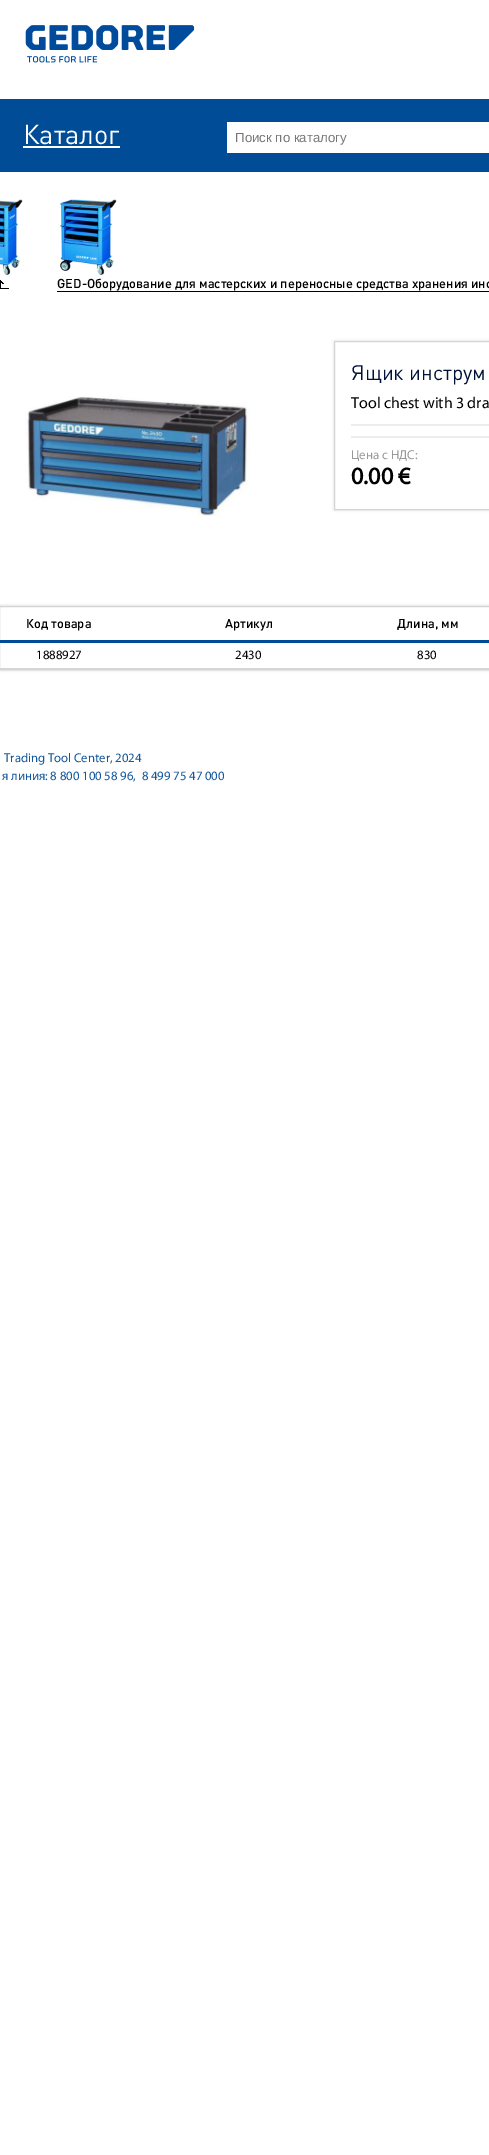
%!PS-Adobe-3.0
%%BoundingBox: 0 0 489 2155
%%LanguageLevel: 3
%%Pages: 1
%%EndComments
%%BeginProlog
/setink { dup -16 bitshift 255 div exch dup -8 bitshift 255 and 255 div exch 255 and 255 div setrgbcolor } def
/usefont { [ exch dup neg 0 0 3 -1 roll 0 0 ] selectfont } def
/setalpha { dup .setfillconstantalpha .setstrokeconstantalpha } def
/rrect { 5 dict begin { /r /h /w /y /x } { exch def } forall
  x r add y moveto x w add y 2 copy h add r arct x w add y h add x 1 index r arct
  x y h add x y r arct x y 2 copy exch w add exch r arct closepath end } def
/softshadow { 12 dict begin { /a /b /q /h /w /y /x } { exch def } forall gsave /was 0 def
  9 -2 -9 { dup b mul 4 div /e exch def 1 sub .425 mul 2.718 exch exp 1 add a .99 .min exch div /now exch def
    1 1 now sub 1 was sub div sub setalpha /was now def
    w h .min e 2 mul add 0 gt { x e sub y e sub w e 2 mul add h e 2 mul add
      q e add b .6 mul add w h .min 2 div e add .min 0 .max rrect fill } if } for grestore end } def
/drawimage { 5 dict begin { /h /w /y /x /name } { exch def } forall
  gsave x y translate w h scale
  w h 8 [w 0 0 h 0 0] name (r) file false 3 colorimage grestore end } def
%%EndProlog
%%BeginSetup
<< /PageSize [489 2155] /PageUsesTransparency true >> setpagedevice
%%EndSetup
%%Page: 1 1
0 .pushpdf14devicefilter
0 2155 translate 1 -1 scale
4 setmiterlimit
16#FFFFFF setink
0 0 489 2155 rectfill
(img1.raw) 25 25 170 38 drawimage
16#004C97 setink
0 99 489 73 rectfill
/DIN-Regular 27 usefont
16#FFFFFF setink
23 144 moveto (Каталог) show
23 146 97 2 rectfill
227 122 262 31 rectfill
/LiberationSans-Regular 13.25 usefont
16#757575 setink
235 142 moveto (Поиск по каталогу) show
(img2.raw) 0 199 23 76 drawimage
16#000000 setink
0 288 9 1 rectfill
(img3.raw) 0 280 4 8 drawimage
(img4.raw) 59 199 58 76 drawimage
/DIN-Medium 12.8 usefont
57 288 moveto (GED-Оборудование для мастерских и переносные средства хранения инс) show
57 291 432 1 rectfill
(img5.raw) 25 396 225 120 drawimage
gsave
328 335 moveto 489 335 lineto 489 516 lineto 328 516 lineto closepath 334 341 moveto 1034 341 lineto 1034 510 lineto 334 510 lineto closepath eoclip newpath
16#DADADA setink
334 341 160 169 0 1.5 1 softshadow
grestore
16#D5D5D5 setink
334.5 341.5 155 168 rectstroke
/DIN-Regular 20.75 usefont
16#001238 setink
351 380 moveto (Ящик инструм) show
16#EDEDED setink
351 424 138 2 rectfill
/Myriad-Regular 16 usefont
16#000000 setink
351 408 moveto (Tool chest with 3 dra) show
16#EDEDED setink
351 436 138 2 rectfill
/Myriad-Regular 13 usefont
16#999999 setink
351 459 moveto (Цена с НДС:) show
/Myriad-Bold 24 usefont
16#000000 setink
351 484 moveto (0.00 €) show
gsave
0 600 moveto 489 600 lineto 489 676 lineto 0 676 lineto closepath -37 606 moveto 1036 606 lineto 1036 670 lineto -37 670 lineto closepath eoclip newpath
16#D0D0D0 setink
-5 606 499 64 0 1.5 1 softshadow
grestore
16#D5D5D5 setink
-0.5 606.5 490 63 rectstroke
16#004C97 setink
0 640 489 3 rectfill
/DIN-Medium 12.8 usefont
16#000000 setink
[
    [(Код товара) 26 628]
    [(Артикул) 225 628]
    [(Длина, мм) 397 628]
] { aload pop moveto show } forall
16#D5D5D5 setink
0 668 489 1 rectfill
/Myriad-Regular 12.8 usefont
16#000000 setink
[
    [(1888927) 36 659]
    [(2430) 235 659]
    [(830) 417 659]
] { aload pop moveto show } forall
16#15579B setink
4 762 moveto (Trading Tool Center, 2024) show
2 780 moveto (я линия: 8 800 100 58 96,  8 499 75 47 000) show
.poppdf14devicefilter showpage
%%EOF
